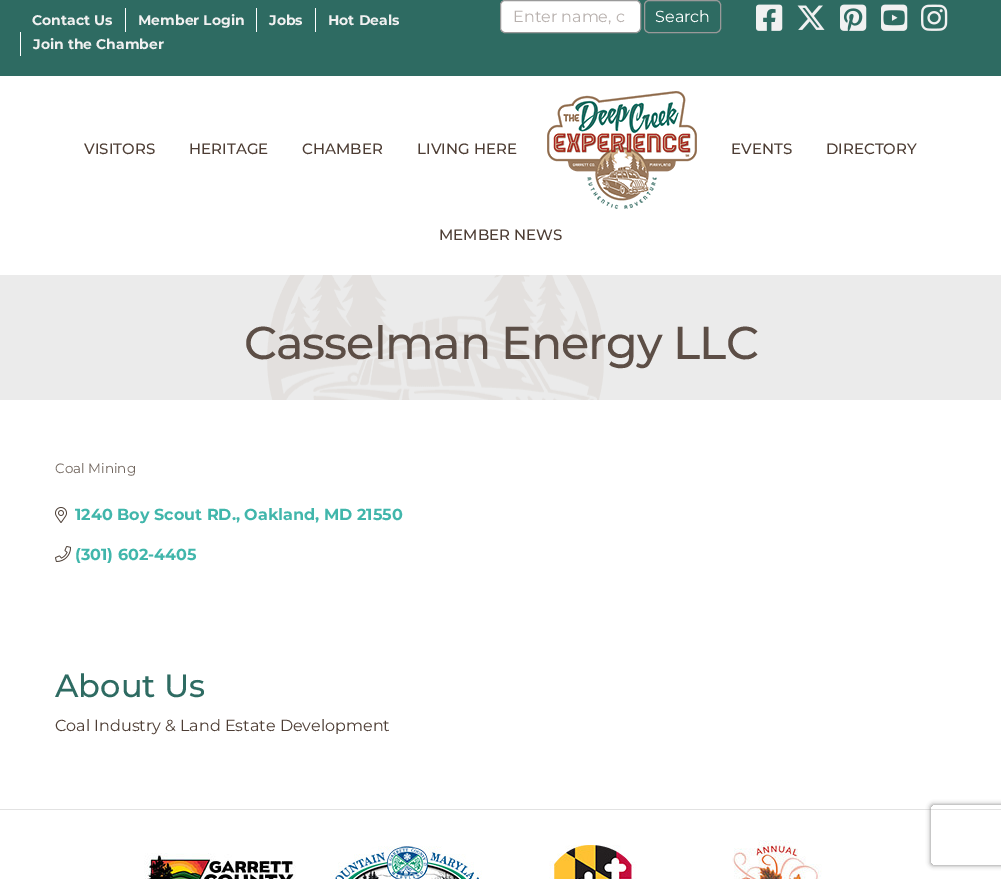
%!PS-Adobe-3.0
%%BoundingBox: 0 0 1001 879
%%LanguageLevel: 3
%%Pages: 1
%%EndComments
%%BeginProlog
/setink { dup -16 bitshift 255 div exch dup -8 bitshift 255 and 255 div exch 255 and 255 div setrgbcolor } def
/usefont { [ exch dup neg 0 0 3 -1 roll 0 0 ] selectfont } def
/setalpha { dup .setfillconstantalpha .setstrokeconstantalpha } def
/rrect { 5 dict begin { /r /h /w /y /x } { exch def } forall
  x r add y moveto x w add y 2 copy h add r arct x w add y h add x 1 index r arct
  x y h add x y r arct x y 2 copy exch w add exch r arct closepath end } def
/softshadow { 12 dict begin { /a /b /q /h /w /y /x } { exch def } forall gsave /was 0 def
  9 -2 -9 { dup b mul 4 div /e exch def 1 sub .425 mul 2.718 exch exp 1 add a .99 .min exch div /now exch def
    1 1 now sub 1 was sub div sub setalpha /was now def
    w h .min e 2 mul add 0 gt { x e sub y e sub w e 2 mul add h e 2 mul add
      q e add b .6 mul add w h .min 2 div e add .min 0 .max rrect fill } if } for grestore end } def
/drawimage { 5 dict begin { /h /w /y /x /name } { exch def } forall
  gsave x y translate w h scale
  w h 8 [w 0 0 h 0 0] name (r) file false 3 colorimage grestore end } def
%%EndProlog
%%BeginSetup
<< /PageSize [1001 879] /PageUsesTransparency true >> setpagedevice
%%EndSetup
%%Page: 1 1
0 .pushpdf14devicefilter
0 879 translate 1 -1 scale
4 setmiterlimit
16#FFFFFF setink
0 0 1001 879 rectfill
16#EBEBEB setink
0 275 1001 125 rectfill
16#2E6B62 setink
0 0 1001 76 rectfill
/Montserrat-Bold 14 usefont
16#F1F1F1 setink
32 25 moveto (Contact Us) show
16#FFFFFF setink
125 8 1 24 rectfill
16#F1F1F1 setink
138 25 moveto (Member Login) show
16#FFFFFF setink
256 8 1 24 rectfill
16#F1F1F1 setink
269 25 moveto (Jobs) show
16#FFFFFF setink
315 8 1 24 rectfill
16#F1F1F1 setink
328 25 moveto (Hot Deals) show
16#FFFFFF setink
20 32 1 24 rectfill
16#F1F1F1 setink
33 49 moveto (Join the Chamber) show
16#FFFFFF setink
500.5 0.5 140 32 4.5 rrect gsave fill grestore
16#999999 setink
stroke
/Montserrat-Regular 16 usefont
16#B8B1AE setink
513 22 moveto (Enter name, c) show
16#999999 setink
644.5 0.5 76 32 4.5 rrect stroke
16#FFFFFF setink
655 22 moveto (Search) show
(img1.raw) 756 4 27 27 drawimage
(img2.raw) 797 5 28 25 drawimage
(img3.raw) 840 4 27 27 drawimage
(img4.raw) 881 4 27 27 drawimage
(img5.raw) 921 4 27 27 drawimage
/Montserrat-Medium 15 usefont
16#4D3D34 setink
[
    [(VISITORS) 84 154]
    [(HERITAGE) 189 154]
    [(CHAMBER) 302 154]
    [(LIVING HERE) 417 154]
] { aload pop moveto show } forall
(img6.raw) 547 91 150 118 drawimage
[
    [(EVENTS) 731 154]
    [(DIRECTORY) 826 154]
    [(MEMBER NEWS) 439 240]
] { aload pop moveto show } forall
(img7.raw) 267 275 337 125 drawimage
/Montserrat-Medium 46 usefont
16#5C4E46 setink
244 359 moveto -1 0 (Casselman Energy LLC) ashow
/Montserrat-Regular 13.5 usefont
16#70655D setink
55 473 moveto (Coal Mining) show
(img8.raw) 55 507 12 16 drawimage
/Montserrat-Bold 16 usefont
16#41B6AB setink
75 520 moveto (1240 Boy Scout RD., Oakland, MD 21550) show
(img9.raw) 55 546 16 16 drawimage
75 560 moveto (\(301\) 602-4405) show
/Montserrat-Medium 32 usefont
16#2E6B62 setink
55 697 moveto (About Us) show
/Montserrat-Regular 16 usefont
16#4D3D34 setink
55 731 moveto (Coal Industry & Land Estate Development) show
16#E2E2E2 setink
0 809 1001 1 rectfill
(img10.raw) 144 853 152 26 drawimage
(img11.raw) 330 846 152 33 drawimage
(img12.raw) 549 845 88 34 drawimage
(img13.raw) 732 840 90 39 drawimage
gsave
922 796 moveto 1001 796 lineto 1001 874 lineto 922 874 lineto closepath 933 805 moveto 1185 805 lineto 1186 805 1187 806 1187 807 curveto 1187 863 lineto 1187 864 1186 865 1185 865 curveto 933 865 lineto 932 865 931 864 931 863 curveto 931 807 lineto 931 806 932 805 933 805 curveto closepath eoclip newpath
16#808080 setink
931 805 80 60 2 2.5 1 softshadow
grestore
.poppdf14devicefilter showpage
%%EOF
